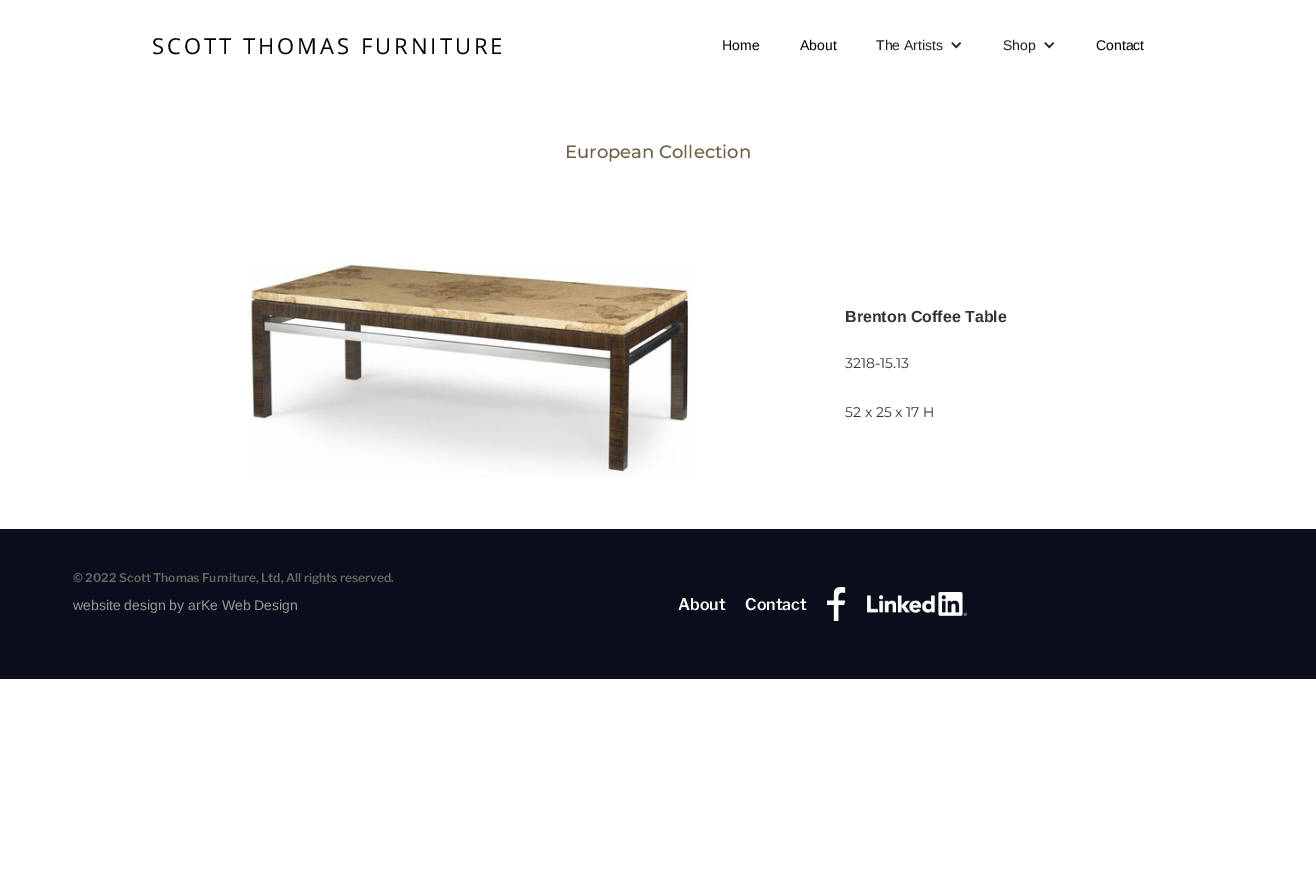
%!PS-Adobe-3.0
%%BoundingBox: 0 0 1316 883
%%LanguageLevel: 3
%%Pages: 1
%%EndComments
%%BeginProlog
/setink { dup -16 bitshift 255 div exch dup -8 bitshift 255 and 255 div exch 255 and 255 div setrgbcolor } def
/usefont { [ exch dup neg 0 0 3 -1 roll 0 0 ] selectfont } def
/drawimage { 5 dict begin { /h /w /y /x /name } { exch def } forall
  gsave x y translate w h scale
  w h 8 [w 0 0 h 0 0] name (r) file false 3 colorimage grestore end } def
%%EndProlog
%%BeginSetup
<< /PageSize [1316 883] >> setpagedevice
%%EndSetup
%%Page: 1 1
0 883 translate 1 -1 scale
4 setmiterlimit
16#FFFFFF setink
0 0 1316 883 rectfill
/OpenSans-Regular 22 usefont
16#000000 setink
152 54 moveto 3 0 (SCOTT THOMAS FURNITURE) ashow
/LiberationSans-Regular 14 usefont
722 50 moveto (Home) show
800 50 moveto (About) show
16#222222 setink
876 50 moveto (The Artists) show
(img1.raw) 951 42 11 7 drawimage
1003 50 moveto (Shop) show
(img1.raw) 1044 42 11 7 drawimage
16#000000 setink
1096 50 moveto (Contact) show
/Montserrat-Medium 18 usefont
16#6D6044 setink
565 158 moveto (European Collection) show
(img2.raw) 250 263 442 214 drawimage
/LiberationSans-Bold 16 usefont
16#333333 setink
845 322 moveto (Brenton Coffee Table) show
/Montserrat-Regular 14 usefont
845 368 moveto (3218-15.13) show
845 417 moveto (52 x 25 x 17 H) show
16#0A0E1A setink
0 529 1316 150 rectfill
/LibreFranklin-SemiBold 12 usefont
16#666666 setink
73 582 moveto (© 2022 Scott Thomas Furniture, Ltd, All rights reserved.) show
/LiberationSans-Regular 14 usefont
16#999999 setink
73 610 moveto (website design by arKe Web Design) show
/LibreFranklin-SemiBold 16 usefont
16#FFFFFF setink
678 610 moveto (About) show
745 610 moveto (Contact) show
(img3.raw) 827 587 19 34 drawimage
(img4.raw) 867 592 100 24 drawimage
showpage
%%EOF
